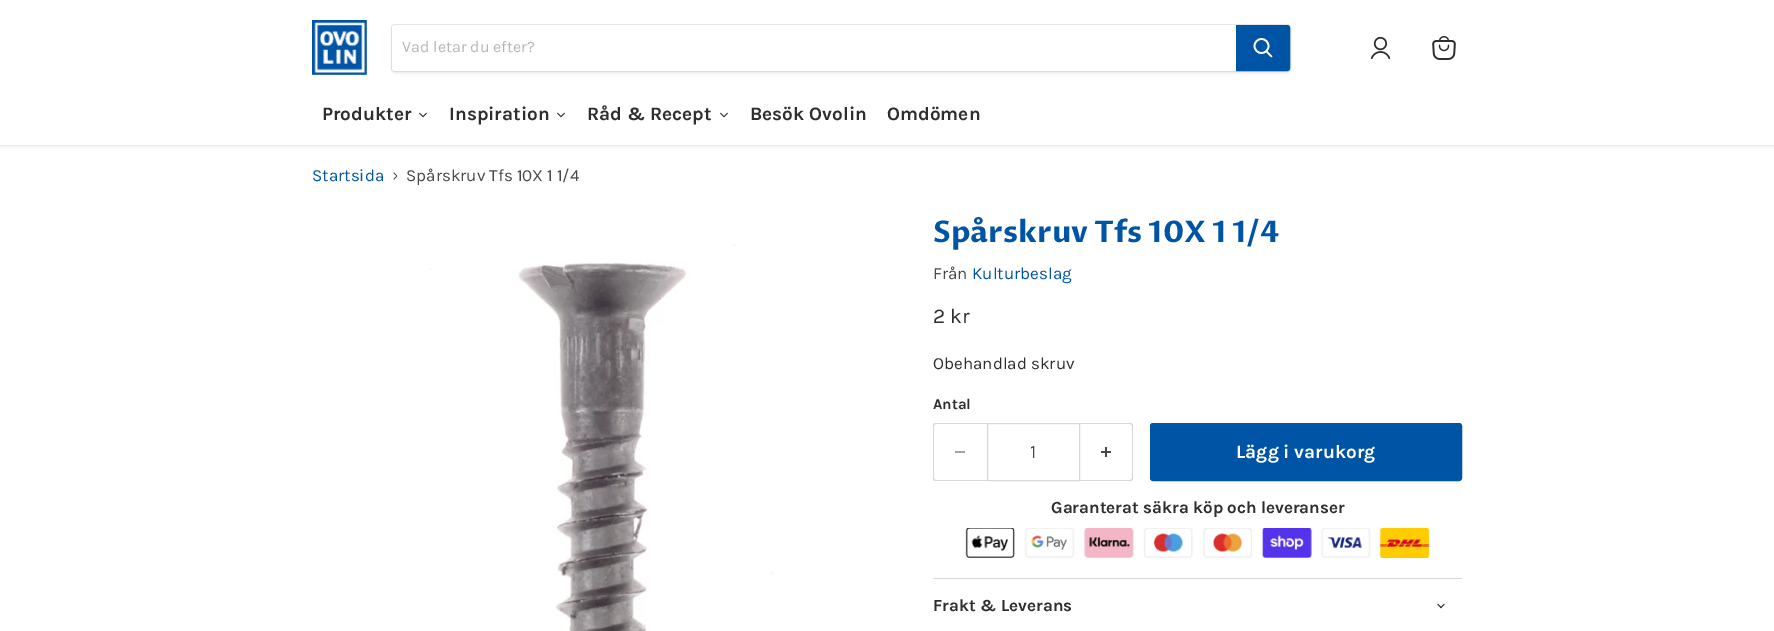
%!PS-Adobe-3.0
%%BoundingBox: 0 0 1774 631
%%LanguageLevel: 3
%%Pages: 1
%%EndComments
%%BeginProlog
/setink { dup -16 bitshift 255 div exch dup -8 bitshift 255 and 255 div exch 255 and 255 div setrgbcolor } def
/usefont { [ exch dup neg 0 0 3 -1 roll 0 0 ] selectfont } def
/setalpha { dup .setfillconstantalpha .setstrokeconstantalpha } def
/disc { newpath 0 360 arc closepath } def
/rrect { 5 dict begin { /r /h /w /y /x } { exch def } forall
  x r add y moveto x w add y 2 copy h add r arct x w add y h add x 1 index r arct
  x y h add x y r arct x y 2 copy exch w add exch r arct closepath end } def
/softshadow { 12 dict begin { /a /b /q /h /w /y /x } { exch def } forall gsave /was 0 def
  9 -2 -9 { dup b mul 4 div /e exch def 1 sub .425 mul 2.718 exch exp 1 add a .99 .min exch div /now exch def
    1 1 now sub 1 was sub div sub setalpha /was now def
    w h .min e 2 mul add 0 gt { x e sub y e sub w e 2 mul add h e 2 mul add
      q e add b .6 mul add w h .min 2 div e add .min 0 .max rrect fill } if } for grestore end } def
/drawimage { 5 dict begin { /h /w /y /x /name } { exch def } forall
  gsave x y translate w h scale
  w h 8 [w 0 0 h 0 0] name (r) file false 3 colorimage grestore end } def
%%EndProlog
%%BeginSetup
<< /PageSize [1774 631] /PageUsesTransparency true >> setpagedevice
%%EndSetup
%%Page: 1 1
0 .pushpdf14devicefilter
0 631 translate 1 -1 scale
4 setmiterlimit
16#FFFFFF setink
0 0 1774 631 rectfill
gsave
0 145 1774 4 rectclip
16#808080 setink
0 1 1774 145 0 2 0.25 softshadow
grestore
(img1.raw) 312 20 55 55 drawimage
16#808080 setink
391 26 900 48 4 1.5 0.11 softshadow
0.2 setalpha
391.5 24.5 899 47 3.5 rrect stroke
1 setalpha
16#FFFFFF setink
395 25 moveto 1236 25 lineto 1236 71 lineto 395 71 lineto 393.5 71 392 69.5 392 68 curveto 392 28 lineto 392 26.5 393.5 25 395 25 curveto closepath fill
/Karla-Regular 16 usefont
16#B6B6B6 setink
402 52 moveto (Vad letar du efter?) show
16#0054A6 setink
1236.5 25.5 moveto 1287 25.5 lineto 1288.5 25.5 1289.5 26.5 1289.5 28 curveto 1289.5 68 lineto 1289.5 69.5 1288.5 70.5 1287 70.5 curveto 1236.5 70.5 lineto closepath gsave fill grestore
stroke
16#FFFFFF setink
1.7 setlinewidth
1 setlinecap
1271.5 56.5 moveto 1266.5 51.5 lineto stroke
0 setlinecap
1261.5 46 7 disc stroke
(img2.raw) 1370 36 20 24 drawimage
(img3.raw) 1432 36 24 24 drawimage
/Karla-Bold 19 usefont
16#2E2E2E setink
322 120 moveto (Produkter) show
(img4.raw) 419 112 8 6 drawimage
449 120 moveto (Inspiration) show
(img4.raw) 557 112 8 6 drawimage
587 120 moveto (Råd & Recept) show
(img4.raw) 720 112 8 6 drawimage
750 120 moveto (Besök Ovolin) show
887 120 moveto (Omdömen) show
/Karla-Regular 17 usefont
16#0054A6 setink
312 181 moveto (Startsida) show
(img5.raw) 393 172 5 8 drawimage
16#484848 setink
406 181 moveto (Spårskruv Tfs 10X 1 1/4) show
(img6.raw) 429 244 344 387 drawimage
/ProzaLibre-Bold 29.75 usefont
16#0054A6 setink
933 242 moveto (Spårskruv Tfs 10X 1 1/4) show
/Karla-Regular 17 usefont
16#484848 setink
933 279 moveto (Från) show
16#0054A6 setink
972 279 moveto (Kulturbeslag) show
/Karla-Regular 21 usefont
16#2E2E2E setink
933 323 moveto (2 kr) show
/Karla-Regular 17 usefont
933 369 moveto (Obehandlad skruv) show
/Karla-Bold 15 usefont
933 409 moveto (Antal) show
16#D8D8D8 setink
936 423 moveto 987 423 lineto 987 481 lineto 936 481 lineto 934 481 933 480 933 478 curveto 933 426 lineto 933 424 934 423 936 423 curveto closepath 936 424 moveto 987 424 lineto 987 480 lineto 936 480 lineto 935 480 934 479 934 478 curveto 934 426 lineto 934 425 935 424 936 424 curveto closepath eofill
16#A4A4A4 setink
955 451 10 2 rectfill
16#D8D8D8 setink
1 setlinewidth
987.5 423.5 92 57 rectstroke
/Karla-Regular 19 usefont
16#484848 setink
1030 458 moveto (1) show
16#D8D8D8 setink
1080 423 moveto 1130 423 lineto 1132 423 1133 424 1133 426 curveto 1133 478 lineto 1133 480 1132 481 1130 481 curveto 1080 481 lineto closepath 1080 424 moveto 1130 424 lineto 1131 424 1132 425 1132 426 curveto 1132 478 lineto 1132 479 1131 480 1130 480 curveto 1080 480 lineto closepath eofill
(img7.raw) 1101 447 10 10 drawimage
16#0054A6 setink
1150.5 423.5 311 57 2.5 rrect gsave fill grestore
stroke
/Karla-Bold 19 usefont
16#FFFFFF setink
1236 458 moveto (Lägg i varukorg) show
/Karla-Bold 17 usefont
16#2E2E2E setink
1051 513 moveto (Garanterat säkra köp och leveranser) show
(img8.raw) 965 528 465 30 drawimage
16#D8D8D8 setink
933 578 529 1 rectfill
16#2E2E2E setink
933 611 moveto (Frakt & Leverans) show
(img9.raw) 1437 603 8 6 drawimage
.poppdf14devicefilter showpage
%%EOF
